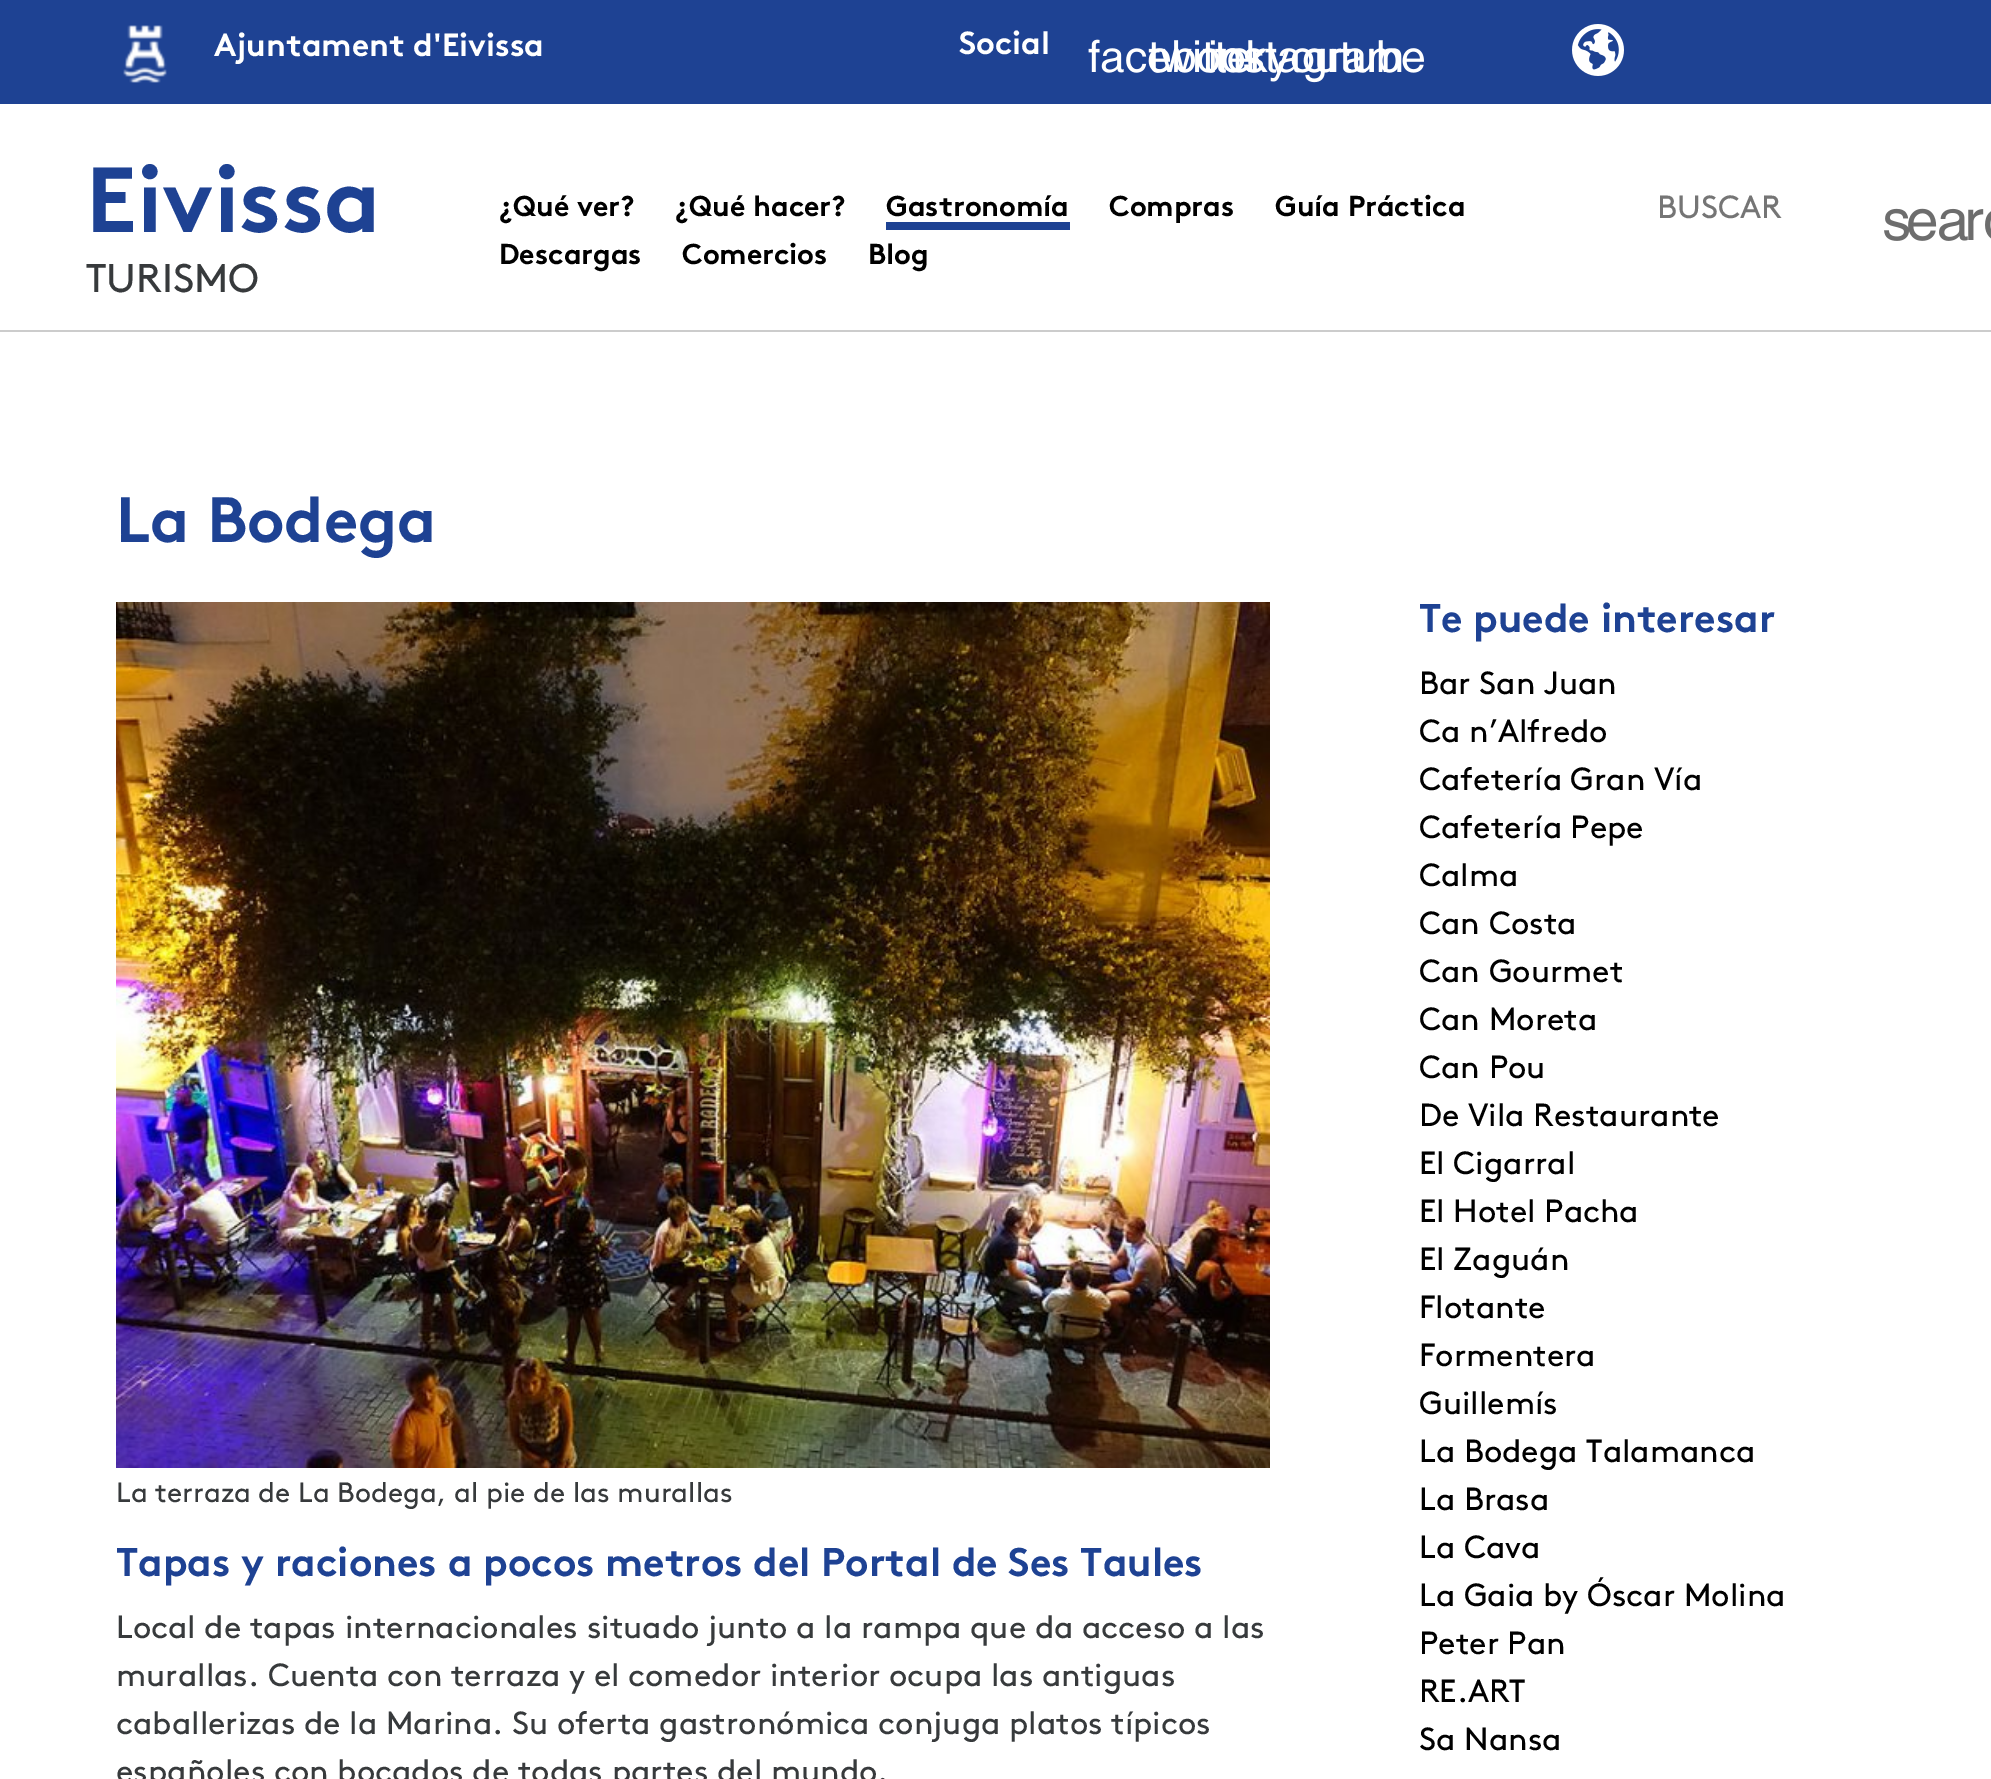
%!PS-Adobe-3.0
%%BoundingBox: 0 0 1991 1779
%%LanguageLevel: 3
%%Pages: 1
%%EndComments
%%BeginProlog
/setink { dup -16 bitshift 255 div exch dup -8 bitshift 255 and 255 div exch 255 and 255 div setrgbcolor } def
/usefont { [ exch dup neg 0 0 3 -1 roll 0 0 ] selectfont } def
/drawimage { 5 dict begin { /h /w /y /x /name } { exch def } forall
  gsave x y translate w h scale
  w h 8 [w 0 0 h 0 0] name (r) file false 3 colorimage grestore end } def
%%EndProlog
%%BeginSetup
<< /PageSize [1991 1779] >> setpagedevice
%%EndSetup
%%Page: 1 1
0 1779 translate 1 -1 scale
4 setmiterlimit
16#FFFFFF setink
0 0 1991 1779 rectfill
16#1E4293 setink
0 0 1991 104 rectfill
(img1.raw) 123 25 44 58 drawimage
/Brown-Bold 32 usefont
16#FFFFFF setink
214 56 moveto (Ajuntament d'Eivissa) show
959 54 moveto (Social) show
(img2.raw) 1088 39 180 34 drawimage
(img3.raw) 1148 40 117 33 drawimage
(img4.raw) 1210 40 192 43 drawimage
(img5.raw) 1268 40 156 42 drawimage
(img6.raw) 1572 24 52 52 drawimage
16#CCCCCC setink
0 330 1991 2 rectfill
/Brown-Bold 92 usefont
16#1E4293 setink
86 232 moveto (Eivissa) show
/Brown-Regular 40 usefont
16#373A3C setink
86 292 moveto (TURISMO) show
/Brown-Bold 28.75 usefont
16#000000 setink
[
    [(¿Qué ver?) 499 216]
    [(¿Qué hacer?) 675 216]
    [(Gastronomía) 886 216]
] { aload pop moveto show } forall
16#1E4293 setink
886 222 184 8 rectfill
16#000000 setink
[
    [(Compras) 1109 216]
    [(Guía Práctica) 1275 216]
    [(Descargas) 499 264]
    [(Comercios) 682 264]
    [(Blog) 868 264]
] { aload pop moveto show } forall
/Brown-Regular 32 usefont
16#757575 setink
1657 218 moveto (BUSCAR) show
(img7.raw) 1884 208 107 33 drawimage
/Brown-Bold 64 usefont
16#1E4293 setink
116 542 moveto (La Bodega) show
(img8.raw) 116 602 1154 866 drawimage
/Brown-Regular 28 usefont
16#373A3C setink
116 1502 moveto (La terraza de La Bodega, al pie de las murallas) show
/Brown-Bold 40 usefont
16#1E4293 setink
116 1576 moveto (Tapas y raciones a pocos metros del Portal de Ses Taules) show
/Brown-Regular 32 usefont
16#373A3C setink
[
    [(Local de tapas internacionales situado junto a la rampa que da acceso a las) 116 1638]
    [(murallas. Cuenta con terraza y el comedor interior ocupa las antiguas) 116 1686]
    [(caballerizas de la Marina. Su oferta gastronómica conjuga platos típicos) 116 1734]
    [(españoles con bocados de todas partes del mundo.) 116 1782]
] { aload pop moveto show } forall
/Brown-Bold 40 usefont
16#1E4293 setink
1419 632 moveto (Te puede interesar) show
/Brown-Regular 32 usefont
16#000000 setink
[
    [(Bar San Juan) 1419 694]
    [(Ca n’Alfredo) 1419 742]
    [(Cafetería Gran Vía) 1419 790]
    [(Cafetería Pepe) 1419 838]
    [(Calma) 1419 886]
    [(Can Costa) 1419 934]
    [(Can Gourmet) 1419 982]
    [(Can Moreta) 1419 1030]
    [(Can Pou) 1419 1078]
    [(De Vila Restaurante) 1419 1126]
    [(El Cigarral) 1419 1174]
    [(El Hotel Pacha) 1419 1222]
    [(El Zaguán) 1419 1270]
    [(Flotante) 1419 1318]
    [(Formentera) 1419 1366]
    [(Guillemís) 1419 1414]
    [(La Bodega Talamanca) 1419 1462]
    [(La Brasa) 1419 1510]
    [(La Cava) 1419 1558]
    [(La Gaia by Óscar Molina) 1419 1606]
    [(Peter Pan) 1419 1654]
    [(RE.ART) 1419 1702]
    [(Sa Nansa) 1419 1750]
] { aload pop moveto show } forall
showpage
%%EOF
